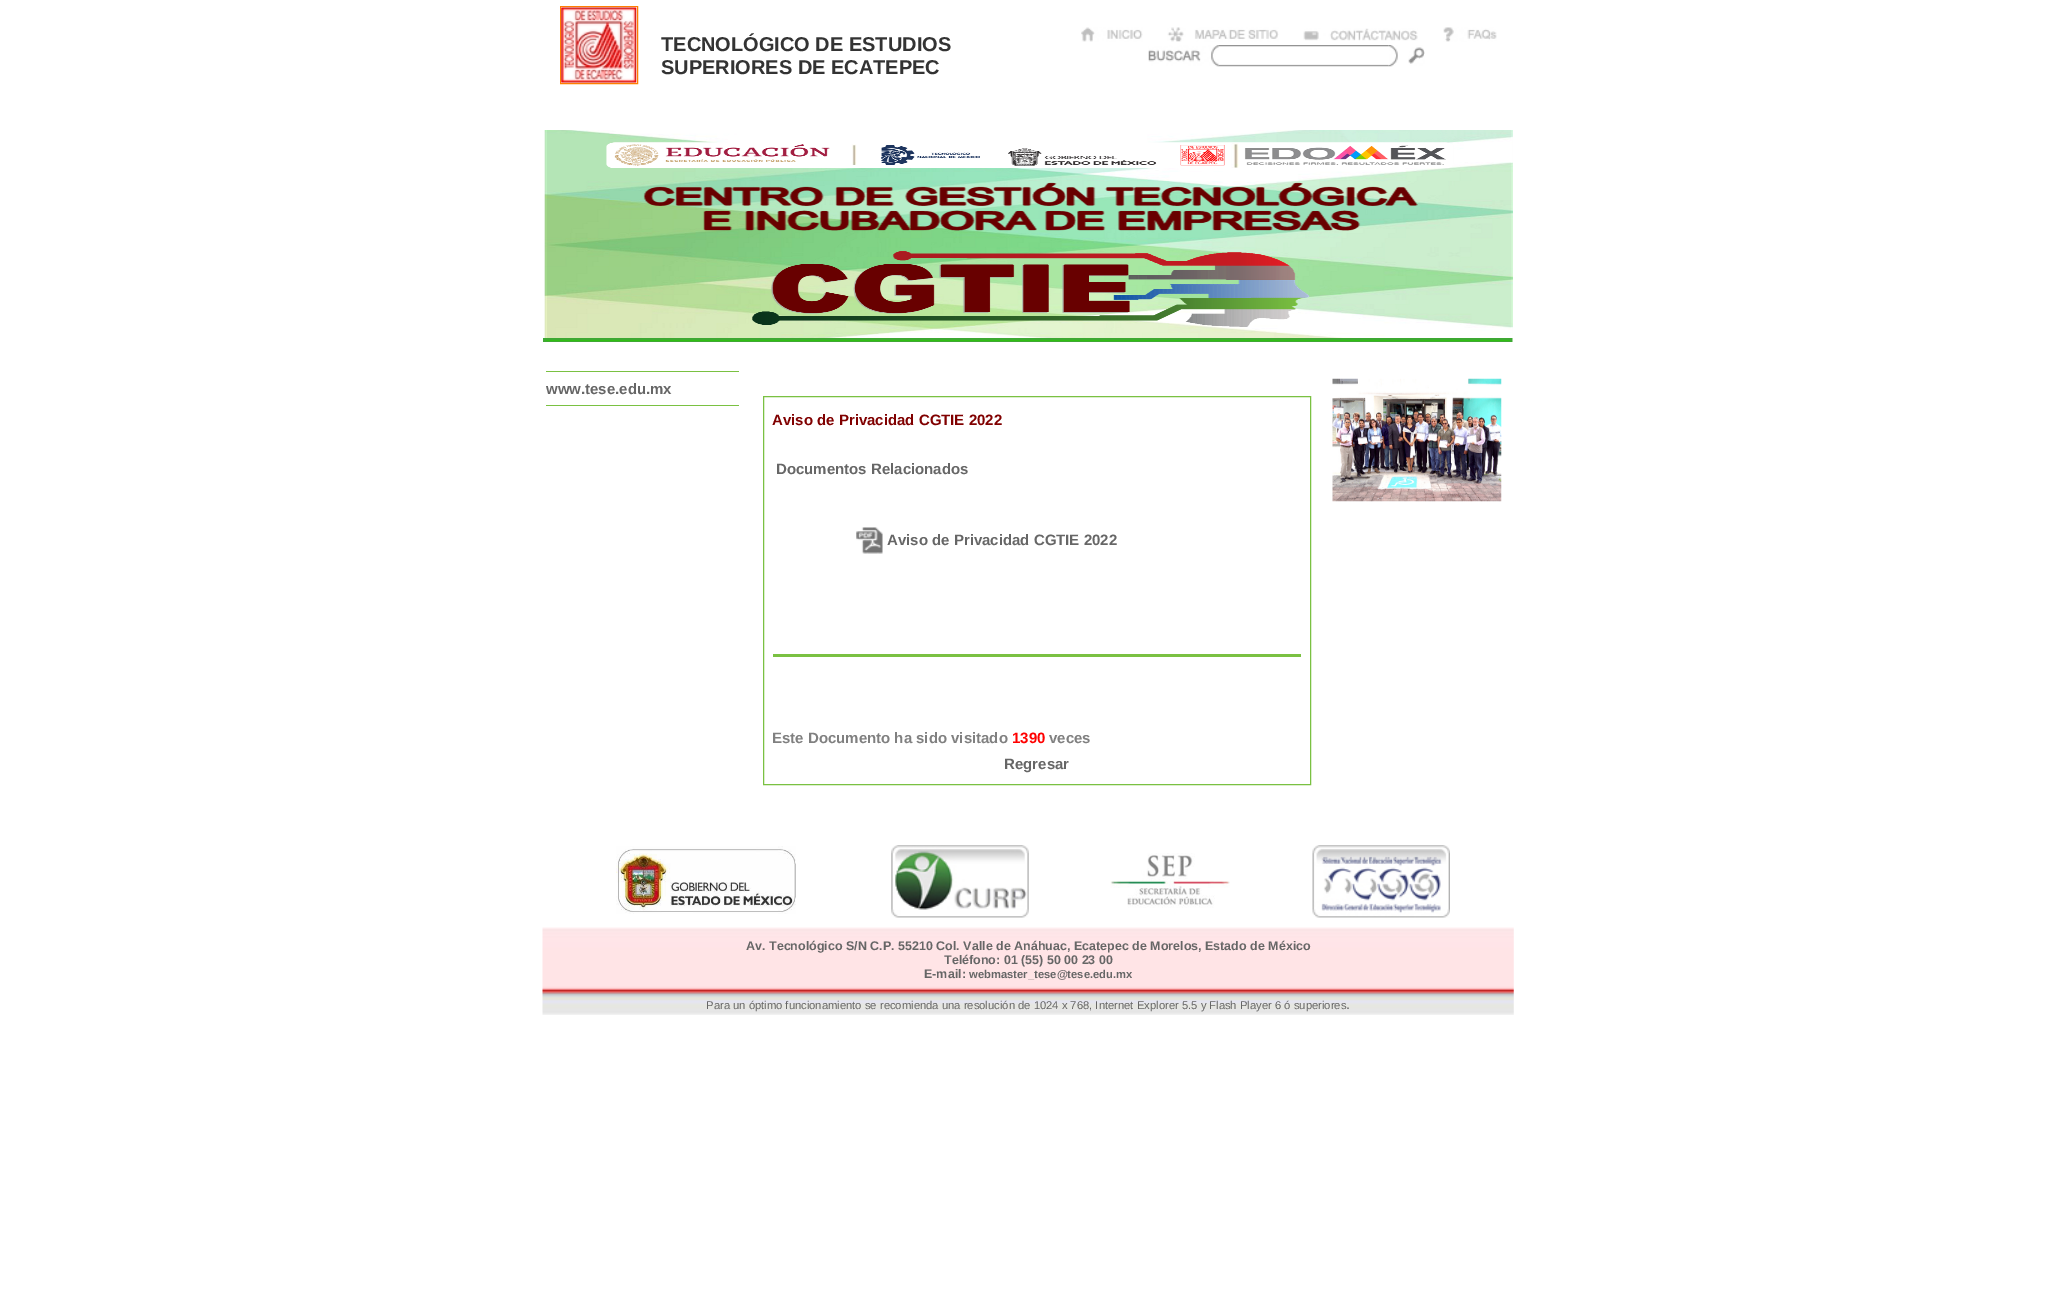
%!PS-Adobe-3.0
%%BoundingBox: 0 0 2056 1299
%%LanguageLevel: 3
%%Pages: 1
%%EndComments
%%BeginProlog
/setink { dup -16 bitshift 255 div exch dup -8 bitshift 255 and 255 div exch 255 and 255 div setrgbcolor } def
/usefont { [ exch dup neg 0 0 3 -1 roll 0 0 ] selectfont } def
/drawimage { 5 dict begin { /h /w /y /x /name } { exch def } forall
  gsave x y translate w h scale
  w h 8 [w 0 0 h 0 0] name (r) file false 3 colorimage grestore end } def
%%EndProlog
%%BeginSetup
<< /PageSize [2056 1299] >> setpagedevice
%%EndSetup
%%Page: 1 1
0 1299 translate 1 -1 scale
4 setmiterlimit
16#FFFFFF setink
0 0 2056 1299 rectfill
16#FFF1E4 setink
560.5 6.5 moveto 637.5 6.5 lineto 637.5 83.5 lineto 560.5 83.5 lineto closepath gsave fill grestore
16#FF7F00 setink
stroke
(img1.raw) 561 7 76 76 drawimage
/LiberationSans-Bold 20 usefont
16#333333 setink
661 51 moveto (TECNOLÓGICO DE ESTUDIOS) show
661 74 moveto (SUPERIORES DE ECATEPEC) show
(img2.raw) 1081 27 62 15 drawimage
(img3.raw) 1167 27 112 15 drawimage
(img4.raw) 1303 28 115 13 drawimage
(img5.raw) 1443 27 54 15 drawimage
(img7.raw) 1218 45 171 22 drawimage
(img6.raw) 1148 45 71 22 drawimage
(img8.raw) 1388 45 37 22 drawimage
(img9.raw) 543 130 970 212 drawimage
16#7AC142 setink
546 371 193 1 rectfill
/LiberationSans-Bold 15 usefont
16#666666 setink
546 394 moveto (www.tese.edu.mx) show
16#7AC142 setink
546 405 193 1 rectfill
763.5 396.5 547 388 rectstroke
16#800000 setink
772 425 moveto (Aviso de Privacidad CGTIE 2022) show
16#666666 setink
776 474 moveto (Documentos Relacionados) show
(img10.raw) 856 527 27 27 drawimage
887 545 moveto (Aviso de Privacidad CGTIE 2022) show
16#7AC142 setink
773 654 528 3 rectfill
16#808080 setink
772 743 moveto (Este Documento ha sido visitado) show
16#FF0000 setink
1012 743 moveto (1390) show
16#808080 setink
1049 743 moveto (veces) show
16#666666 setink
1004 769 moveto (Regresar) show
(img11.raw) 1332 378 170 124 drawimage
(img12.raw) 616 846 180 68 drawimage
(img13.raw) 891 845 138 73 drawimage
(img14.raw) 1110 853 120 55 drawimage
(img15.raw) 1312 845 138 73 drawimage
(img16.raw) 542 927 972 88 drawimage
/LiberationSans-Bold 12.5 usefont
[
    [(Av. Tecnológico S/N C.P. 55210 Col. Valle de Anáhuac, Ecatepec de Morelos, Estado de México) 746 950]
    [(Teléfono: 01 \(55\) 50 00 23 00) 944 964]
    [(E-mail:) 924 978]
] { aload pop moveto show } forall
/LiberationSans-Bold 11.25 usefont
969 978 moveto (webmaster_tese@tese.edu.mx) show
/LiberationSans-Regular 11.25 usefont
706 1009 moveto (Para un óptimo funcionamiento se recomienda una resolución de 1024 x 768, Internet Explorer 5.5 y Flash Player 6 ó superiores) show
/LiberationSans-Regular 15 usefont
1346 1009 moveto (.) show
showpage
%%EOF
